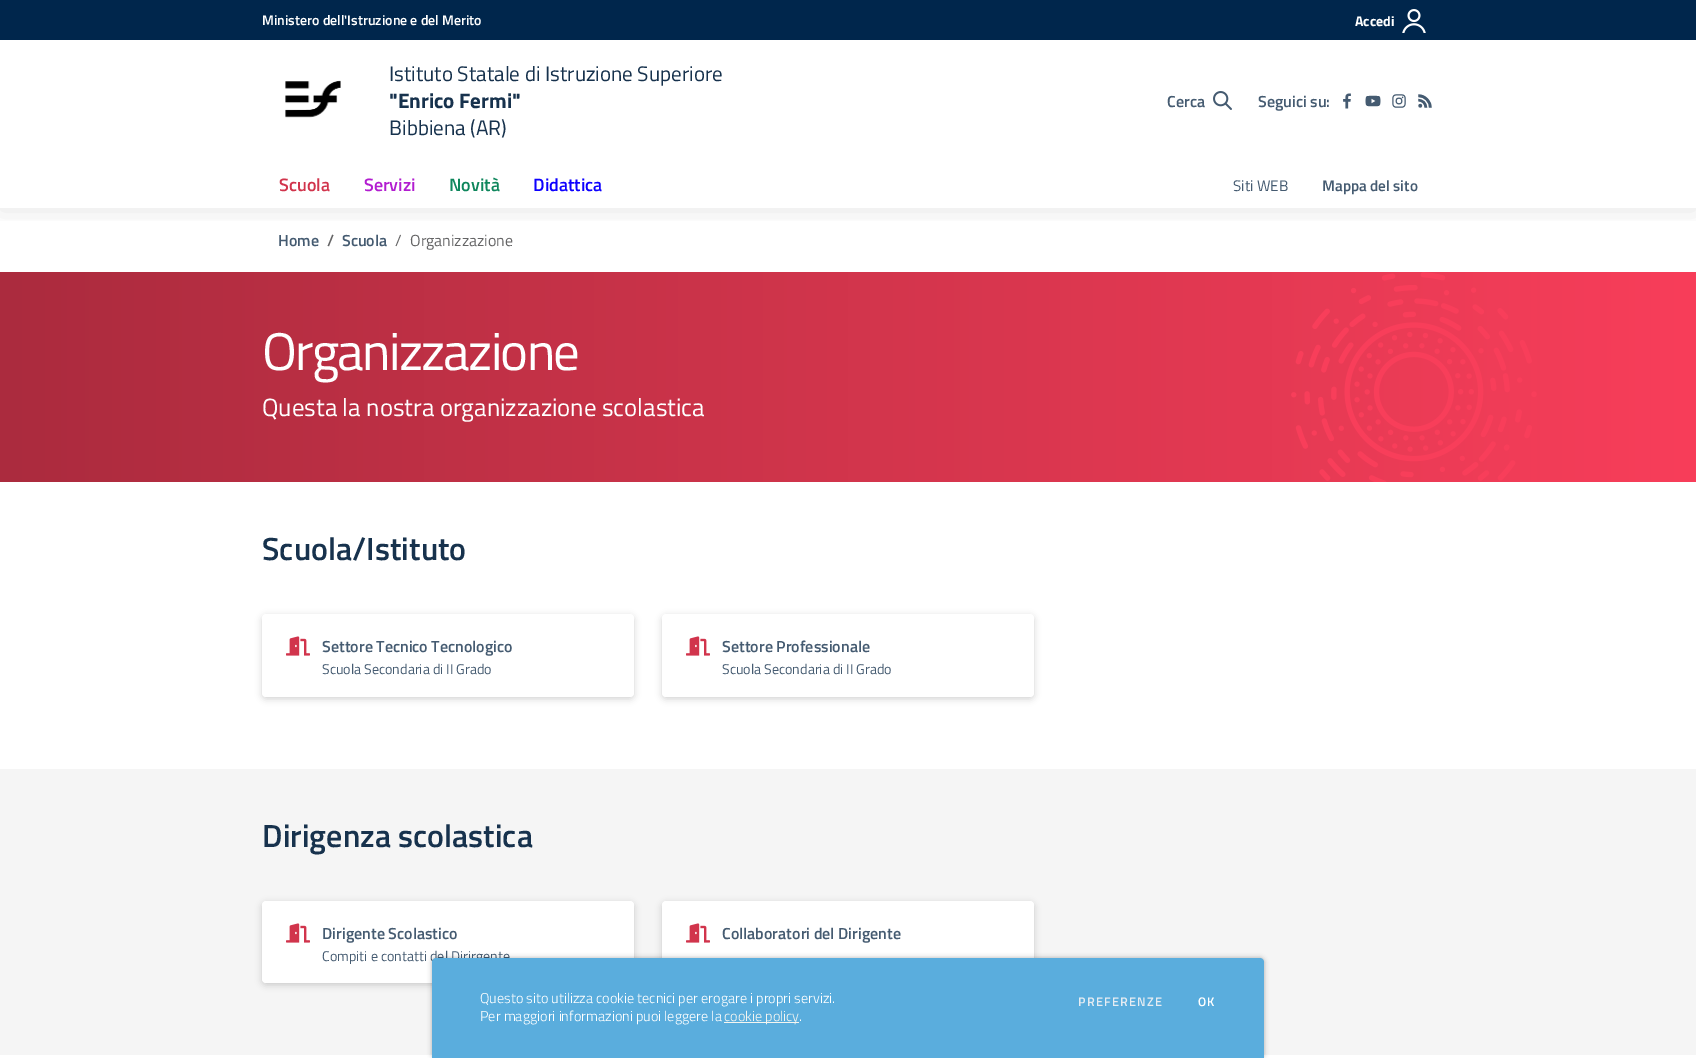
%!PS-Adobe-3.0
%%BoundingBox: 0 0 1696 1058
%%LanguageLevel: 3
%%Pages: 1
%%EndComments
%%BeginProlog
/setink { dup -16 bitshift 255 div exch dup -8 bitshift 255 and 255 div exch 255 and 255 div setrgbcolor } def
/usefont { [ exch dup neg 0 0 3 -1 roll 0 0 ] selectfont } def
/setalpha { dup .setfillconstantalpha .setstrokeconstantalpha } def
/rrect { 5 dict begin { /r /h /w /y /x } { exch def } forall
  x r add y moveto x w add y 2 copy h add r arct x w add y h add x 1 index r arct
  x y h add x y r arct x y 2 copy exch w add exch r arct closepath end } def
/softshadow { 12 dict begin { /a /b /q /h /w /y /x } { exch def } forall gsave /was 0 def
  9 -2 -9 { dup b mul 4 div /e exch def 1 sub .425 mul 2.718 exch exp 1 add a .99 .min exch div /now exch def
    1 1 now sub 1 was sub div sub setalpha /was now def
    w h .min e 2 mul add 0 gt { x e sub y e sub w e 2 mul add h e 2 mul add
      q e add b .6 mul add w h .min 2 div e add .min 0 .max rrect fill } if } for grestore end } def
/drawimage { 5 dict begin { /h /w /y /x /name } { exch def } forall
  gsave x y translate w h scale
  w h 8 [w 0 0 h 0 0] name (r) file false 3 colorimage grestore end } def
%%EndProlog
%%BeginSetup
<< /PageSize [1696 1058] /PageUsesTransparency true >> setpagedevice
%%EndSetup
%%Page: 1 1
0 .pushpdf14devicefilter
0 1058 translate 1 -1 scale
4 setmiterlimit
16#FFFFFF setink
0 0 1696 1058 rectfill
gsave
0 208 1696 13 rectclip
16#000000 setink
0 2 1696 208 0 12.5 0.1 softshadow
grestore
16#00264C setink
0 0 1696 40 rectfill
/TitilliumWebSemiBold-SemiBold 14 usefont
16#FFFFFF setink
262 25 moveto (Ministero dell'Istruzione e del Merito) show
/TitilliumWeb-Bold 14 usefont
1355 26 moveto (Accedi) show
(img1.raw) 1402 9 24 24 drawimage
(img2.raw) 285 80 56 38 drawimage
/TitilliumWeb-Regular 21 usefont
16#17324D setink
389 81 moveto (Istituto Statale di Istruzione Superiore) show
/TitilliumWeb-Bold 21 usefont
389 108 moveto ("Enrico Fermi") show
/TitilliumWeb-Regular 21 usefont
389 135 moveto (Bibbiena \(AR\)) show
/TitilliumWebSemiBold-SemiBold 16 usefont
16#455B71 setink
1167 107 moveto (Cerca) show
(img3.raw) 1213 91 19 19 drawimage
1258 107 moveto (Seguici su:) show
(img4.raw) 1343 93 8 16 drawimage
(img5.raw) 1365 95 16 12 drawimage
(img6.raw) 1392 94 14 14 drawimage
(img7.raw) 1418 94 14 14 drawimage
/TitilliumWebSemiBold-SemiBold 18 usefont
16#D1344C setink
279 191 moveto (Scuola) show
16#B21DD0 setink
364 191 moveto (Servizi) show
16#0E865C setink
449 191 moveto (Novità) show
16#0D00FF setink
533 191 moveto (Didattica) show
/TitilliumWeb-Regular 15.25 usefont
16#455B71 setink
1233 191 moveto (Siti WEB) show
/TitilliumWebSemiBold-SemiBold 15.25 usefont
1322 191 moveto (Mappa del sito) show
/TitilliumWebSemiBold-SemiBold 16 usefont
278 246 moveto (Home) show
16#656566 setink
327 246 moveto (/) show
16#455B71 setink
342 246 moveto (Scuola) show
/TitilliumWeb-Regular 16 usefont
16#656566 setink
395 246 moveto (/) show
410 246 moveto (Organizzazione) show
gsave 0 272 moveto 1696 272 lineto 1696 482 lineto 0 482 lineto closepath clip newpath
<< /ShadingType 2 /ColorSpace /DeviceRGB /Coords [0 377 1696 377] /Extend [true true] /Function << /FunctionType 2 /Domain [0 1] /C0 [0.671 0.169 0.243] /C1 [0.973 0.243 0.353] /N 1 >> >> shfill grestore
/TitilliumWeb-Regular 53 usefont
16#FFFFFF setink
262 370 moveto -1.75 0 (Organizzazione) ashow
/TitilliumWeb-Regular 24.9 usefont
262 416 moveto (Questa la nostra organizzazione scolastica) show
(img8.raw) 1291 272 246 210 drawimage
/TitilliumWebSemiBold-SemiBold 32 usefont
16#17324D setink
262 560 moveto (Scuola/Istituto) show
16#000000 setink
262 616 372 83 4 3.5 0.17 softshadow
16#FFFFFF setink
262 614 372 83 4 rrect fill
(img9.raw) 286 636 24 20 drawimage
/TitilliumWebSemiBold-SemiBold 16 usefont
16#455B71 setink
322 652 moveto (Settore Tecnico Tecnologico) show
/TitilliumWeb-Regular 14.1 usefont
322 674 moveto (Scuola Secondaria di II Grado) show
16#000000 setink
662 616 372 83 4 3.5 0.17 softshadow
16#FFFFFF setink
662 614 372 83 4 rrect fill
(img9.raw) 686 636 24 20 drawimage
/TitilliumWebSemiBold-SemiBold 16 usefont
16#455B71 setink
722 652 moveto (Settore Professionale) show
/TitilliumWeb-Regular 14.1 usefont
722 674 moveto (Scuola Secondaria di II Grado) show
16#F5F5F5 setink
0 769 1696 286 rectfill
/TitilliumWebSemiBold-SemiBold 32 usefont
16#17324D setink
262 847 moveto (Dirigenza scolastica) show
16#000000 setink
262 903 372 82 4 3.5 0.17 softshadow
16#FFFFFF setink
262 901 372 82 4 rrect fill
(img9.raw) 286 923 24 20 drawimage
/TitilliumWebSemiBold-SemiBold 16 usefont
16#455B71 setink
322 939 moveto (Dirigente Scolastico) show
/TitilliumWeb-Regular 14.1 usefont
322 961 moveto (Compiti e contatti del Dirirgente) show
16#000000 setink
662 903 372 82 4 3.5 0.17 softshadow
16#FFFFFF setink
662 901 372 82 4 rrect fill
(img9.raw) 686 923 24 20 drawimage
/TitilliumWebSemiBold-SemiBold 16 usefont
16#455B71 setink
722 939 moveto (Collaboratori del Dirigente) show
16#000000 setink
432 958 832 100 4 2.5 0.3 softshadow
16#5AADDD setink
436 958 moveto 1260 958 lineto 1262 958 1264 960 1264 962 curveto 1264 1058 lineto 432 1058 lineto 432 962 lineto 432 960 434 958 436 958 curveto closepath fill
/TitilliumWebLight-Light 14.25 usefont
16#FFFFFF setink
480 1003 moveto (Questo sito utilizza cookie tecnici per erogare i propri servizi.) show
480 1021 moveto (Per maggiori informazioni puoi leggere la) show
16#F5F5F0 setink
724 1022 75 1 rectfill
724 1021 moveto (cookie policy) show
16#FFFFFF setink
799 1021 moveto (.) show
/TitilliumWebSemiBold-SemiBold 12.5 usefont
16#E6ECF2 setink
1078 1006 moveto 1.25 0 (PREFERENZE) ashow
16#FFFFFF setink
1198 1006 moveto 1.25 0 (OK) ashow
.poppdf14devicefilter showpage
%%EOF
